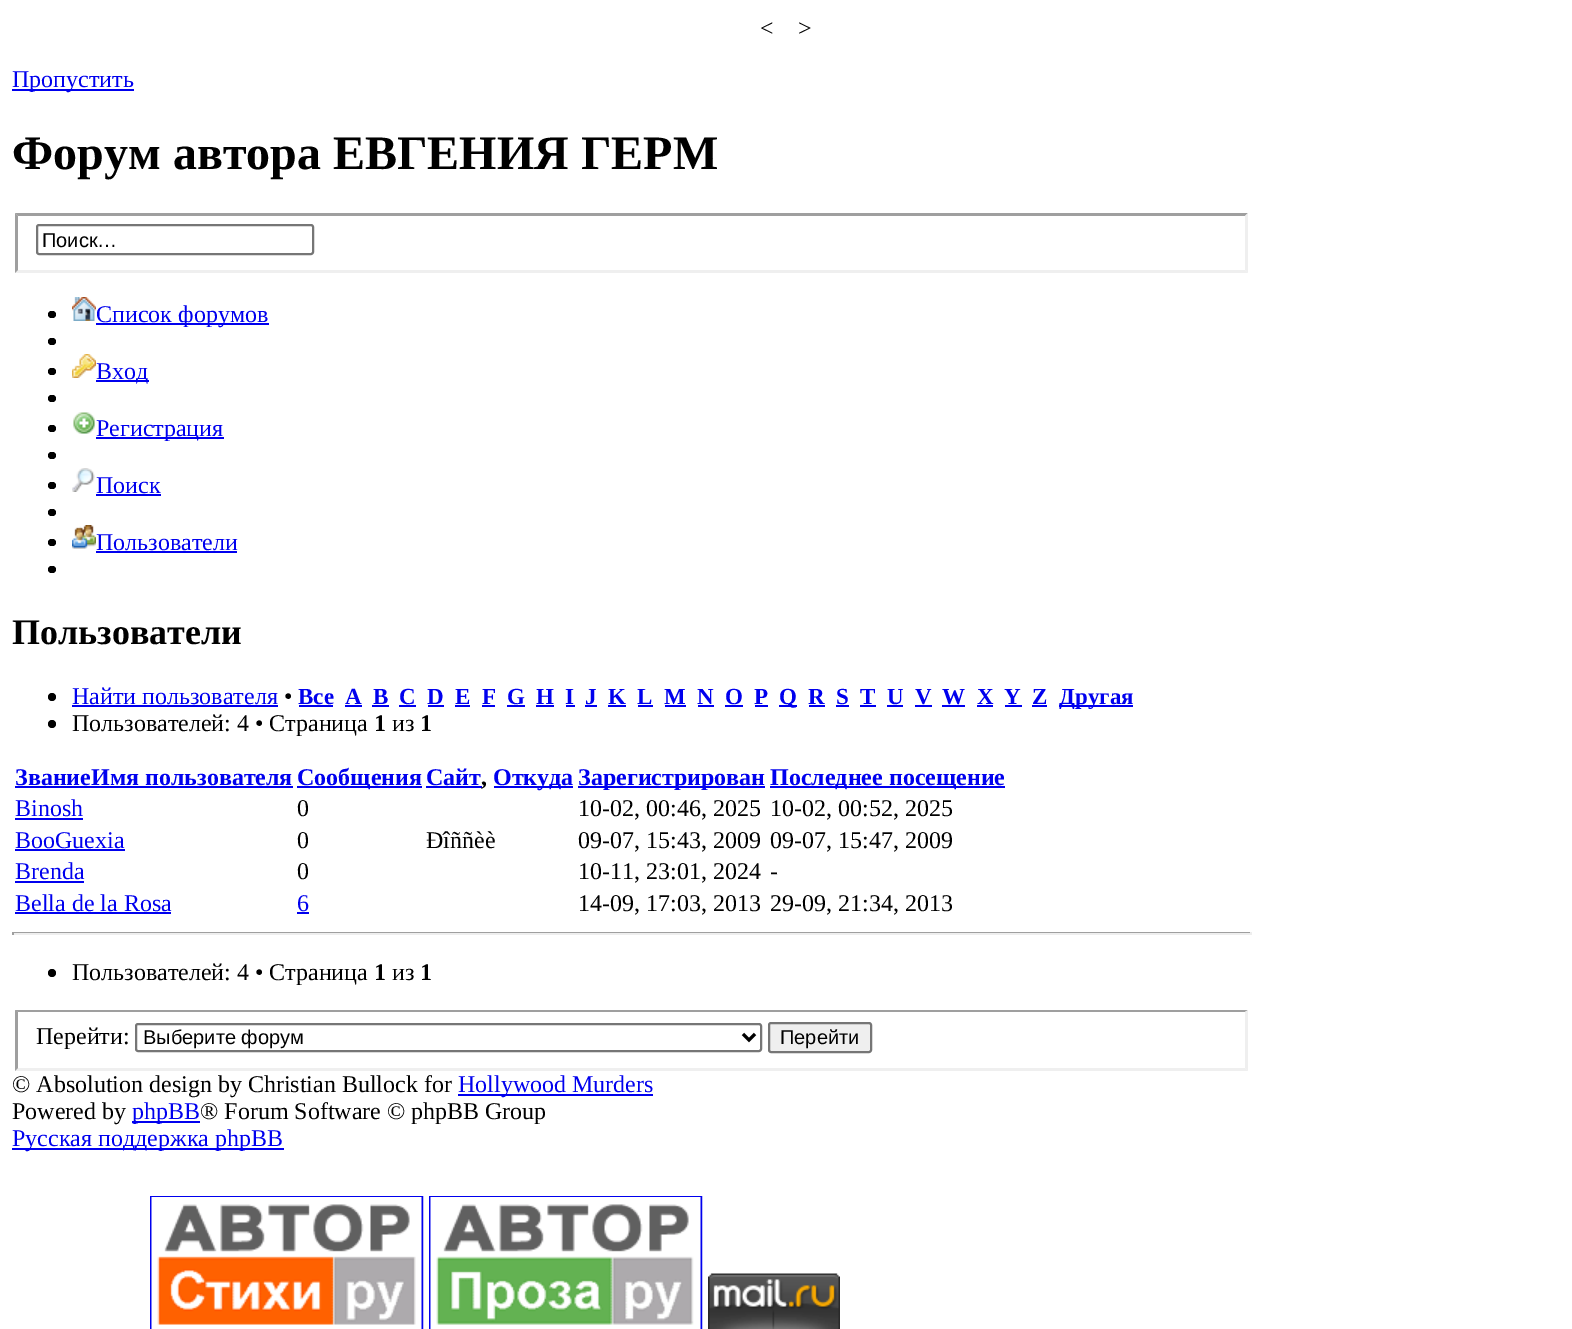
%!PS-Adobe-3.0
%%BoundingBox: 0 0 1572 1329
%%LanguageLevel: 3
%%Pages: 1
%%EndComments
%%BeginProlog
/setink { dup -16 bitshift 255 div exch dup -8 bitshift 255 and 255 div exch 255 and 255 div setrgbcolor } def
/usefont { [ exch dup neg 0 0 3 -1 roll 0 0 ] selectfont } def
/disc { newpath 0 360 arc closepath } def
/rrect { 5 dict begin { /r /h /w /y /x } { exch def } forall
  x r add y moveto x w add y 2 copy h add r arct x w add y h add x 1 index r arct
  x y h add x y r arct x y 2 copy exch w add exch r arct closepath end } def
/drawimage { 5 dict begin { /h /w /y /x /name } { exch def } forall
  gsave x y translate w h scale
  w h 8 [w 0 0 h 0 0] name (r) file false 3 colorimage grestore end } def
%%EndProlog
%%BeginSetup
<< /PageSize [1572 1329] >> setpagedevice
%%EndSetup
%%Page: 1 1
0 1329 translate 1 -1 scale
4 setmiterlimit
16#FFFFFF setink
0 0 1572 1329 rectfill
/LiberationSerif-Regular 24 usefont
16#000000 setink
760 36 moveto (<) show
798 36 moveto (>) show
16#0000EE setink
12 89 122 2 rectfill
12 87 moveto (Пропустить) show
/LiberationSerif-Bold 48 usefont
16#000000 setink
12 169 moveto (Форум автора ЕВГЕНИЯ ГЕРМ) show
16#9F9F9F setink
15 213 moveto 1248 213 lineto 1245 216 lineto 18 216 lineto closepath fill
16#EFEFEF setink
1248 213 moveto 1248 273 lineto 1245 270 lineto 1245 216 lineto closepath fill
1248 273 moveto 15 273 lineto 18 270 lineto 1245 270 lineto closepath fill
16#9F9F9F setink
15 273 moveto 15 213 lineto 18 216 lineto 18 270 lineto closepath fill
16#767676 setink
2 setlinewidth
37 225 276 29 2 rrect stroke
/LiberationSans-Regular 20 usefont
16#000000 setink
42 247 moveto (Поиск…) show
48 311 8 7 3.5 rrect fill
(img1.raw) 72 297 24 24 drawimage
16#0000EE setink
96 323 173 2 rectfill
/LiberationSerif-Regular 24 usefont
96 322 moveto (Список форумов) show
16#000000 setink
48 338 8 7 3.5 rrect fill
48 368 8 7 3.5 rrect fill
(img2.raw) 72 354 24 24 drawimage
16#0000EE setink
96 380 53 2 rectfill
96 379 moveto (Вход) show
16#000000 setink
48 395 8 7 3.5 rrect fill
48 425 8 7 3.5 rrect fill
(img3.raw) 73 412 22 22 drawimage
16#0000EE setink
96 437 128 2 rectfill
96 436 moveto (Регистрация) show
16#000000 setink
48 452 8 7 3.5 rrect fill
48 482 8 7 3.5 rrect fill
(img4.raw) 72 468 23 24 drawimage
16#0000EE setink
96 493 moveto (Поиск) show
96 494 65 2 rectfill
16#000000 setink
48 509 8 7 3.5 rrect fill
48 539 8 7 3.5 rrect fill
(img5.raw) 72 525 24 24 drawimage
16#0000EE setink
96 550 moveto (Пользователи) show
96 551 141 2 rectfill
16#000000 setink
48 566 8 7 3.5 rrect fill
/LiberationSerif-Bold 36 usefont
12 644 moveto (Пользователи) show
52 697 4 disc fill
/LiberationSerif-Regular 24 usefont
16#0000EE setink
72 704 moveto (Найти пользователя) show
72 705 206 2 rectfill
16#000000 setink
284 704 moveto (•) show
/LiberationSerif-Bold 23 usefont
16#0000EE setink
298 704 moveto (Все) show
299 705 34 2 rectfill
345 704 moveto (A) show
345 705 17 2 rectfill
373 704 moveto (B) show
372 705 17 2 rectfill
399 704 moveto (C) show
399 705 17 2 rectfill
427 704 moveto (D) show
428 705 16 2 rectfill
455 704 moveto (E) show
455 705 15 2 rectfill
482 704 moveto (F) show
482 705 13 2 rectfill
507 704 moveto (G) show
507 705 18 2 rectfill
536 704 moveto (H) show
536 705 18 2 rectfill
565 704 moveto (I) show
566 705 9 2 rectfill
585 704 moveto (J) show
585 705 12 2 rectfill
608 704 moveto (K) show
608 705 18 2 rectfill
637 704 moveto (L) show
638 705 15 2 rectfill
664 704 moveto (M) show
665 705 21 2 rectfill
697 704 moveto (N) show
698 705 16 2 rectfill
725 704 moveto (O) show
725 705 18 2 rectfill
754 704 moveto (P) show
755 705 13 2 rectfill
779 705 18 2 rectfill
779 704 moveto (Q) show
808 704 moveto (R) show
809 705 16 2 rectfill
836 704 moveto (S) show
836 705 13 2 rectfill
860 704 moveto (T) show
860 705 16 2 rectfill
887 704 moveto (U) show
887 705 16 2 rectfill
915 704 moveto (V) show
915 705 17 2 rectfill
942 704 moveto (W) show
942 705 23 2 rectfill
977 704 moveto (X) show
977 705 16 2 rectfill
1004 704 moveto (Y) show
1005 705 17 2 rectfill
1032 704 moveto (Z) show
1032 705 15 2 rectfill
1059 705 74 2 rectfill
1059 704 moveto (Другая) show
16#000000 setink
52 724 4 disc fill
/LiberationSerif-Regular 24 usefont
72 731 moveto (Пользователей: 4 • Страница) show
/LiberationSerif-Bold 24 usefont
374 731 moveto (1) show
/LiberationSerif-Regular 24 usefont
392 731 moveto (из) show
/LiberationSerif-Bold 24 usefont
420 731 moveto (1) show
16#0000EE setink
15 785 moveto (ЗваниеИмя пользователя) show
15 786 278 2 rectfill
297 786 125 2 rectfill
297 785 moveto (Сообщения) show
426 785 moveto (Сайт) show
426 786 56 2 rectfill
16#000000 setink
481 785 moveto (,) show
16#0000EE setink
494 786 79 2 rectfill
493 785 moveto (Откуда) show
578 786 187 2 rectfill
578 785 moveto (Зарегистрирован) show
770 786 235 2 rectfill
770 785 moveto (Последнее посещение) show
/LiberationSerif-Regular 24 usefont
15 816 moveto (Binosh) show
15 818 68 2 rectfill
16#000000 setink
[
    [(0) 297 816]
    [(10-02, 00:46, 2025) 578 816]
    [(10-02, 00:52, 2025) 770 816]
] { aload pop moveto show } forall
16#0000EE setink
15 848 moveto (BooGuexia) show
15 849 110 2 rectfill
16#000000 setink
[
    [(0) 297 848]
    [(Ðîññèè) 426 848]
    [(09-07, 15:43, 2009) 578 848]
    [(09-07, 15:47, 2009) 770 848]
] { aload pop moveto show } forall
16#0000EE setink
15 879 moveto (Brenda) show
15 881 69 2 rectfill
16#000000 setink
[
    [(0) 297 879]
    [(10-11, 23:01, 2024) 578 879]
    [(-) 770 879]
] { aload pop moveto show } forall
16#0000EE setink
15 911 moveto (Bella de la Rosa) show
15 912 156 2 rectfill
297 911 moveto (6) show
297 912 12 2 rectfill
16#000000 setink
578 911 moveto (14-09, 17:03, 2013) show
770 911 moveto (29-09, 21:34, 2013) show
[
    [12 932 1239 1 16#9F9F9F]
    [1250 932 2 3 16#EEEEEE]
    [12 933 1239 2 16#EEEEEE]
    [12 932 2 3 16#9F9F9F]
] { aload pop setink rectfill } forall
16#000000 setink
52 973 4 disc fill
72 980 moveto (Пользователей: 4 • Страница) show
/LiberationSerif-Bold 24 usefont
374 980 moveto (1) show
/LiberationSerif-Regular 24 usefont
392 980 moveto (из) show
/LiberationSerif-Bold 24 usefont
420 980 moveto (1) show
16#9F9F9F setink
15 1010 moveto 1248 1010 lineto 1245 1012 lineto 18 1012 lineto closepath fill
16#EFEFEF setink
1248 1010 moveto 1248 1071 lineto 1245 1068 lineto 1245 1012 lineto closepath fill
1248 1071 moveto 15 1071 lineto 18 1068 lineto 1245 1068 lineto closepath fill
16#9F9F9F setink
15 1071 moveto 15 1010 lineto 18 1012 lineto 18 1068 lineto closepath fill
/LiberationSerif-Regular 24 usefont
16#000000 setink
36 1044 moveto (Перейти:) show
16#767676 setink
136 1024 625 27 2 rrect stroke
16#000000 setink
3 setlinewidth
743 1034 moveto 749 1040 lineto 755 1034 lineto stroke
/LiberationSans-Regular 20 usefont
143 1044 moveto (Выберите форум) show
16#EFEFEF setink
769 1023 102 29 2 rrect gsave fill grestore
16#767676 setink
2 setlinewidth
stroke
16#000000 setink
780 1044 moveto (Перейти) show
/LiberationSerif-Regular 24 usefont
12 1092 moveto (© Absolution design by Christian Bullock for) show
16#0000EE setink
458 1094 195 2 rectfill
458 1092 moveto (Hollywood Murders) show
16#000000 setink
12 1119 moveto (Powered by) show
16#0000EE setink
132 1121 68 2 rectfill
132 1119 moveto (phpBB) show
16#000000 setink
200 1119 moveto (® Forum Software © phpBB Group) show
16#0000EE setink
12 1148 272 2 rectfill
12 1146 moveto (Русская поддержка phpBB) show
151 1197 271 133 rectstroke
430 1197 271 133 rectstroke
(img6.raw) 151 1197 271 132 drawimage
(img7.raw) 430 1197 271 132 drawimage
(img8.raw) 708 1273 132 56 drawimage
showpage
%%EOF
